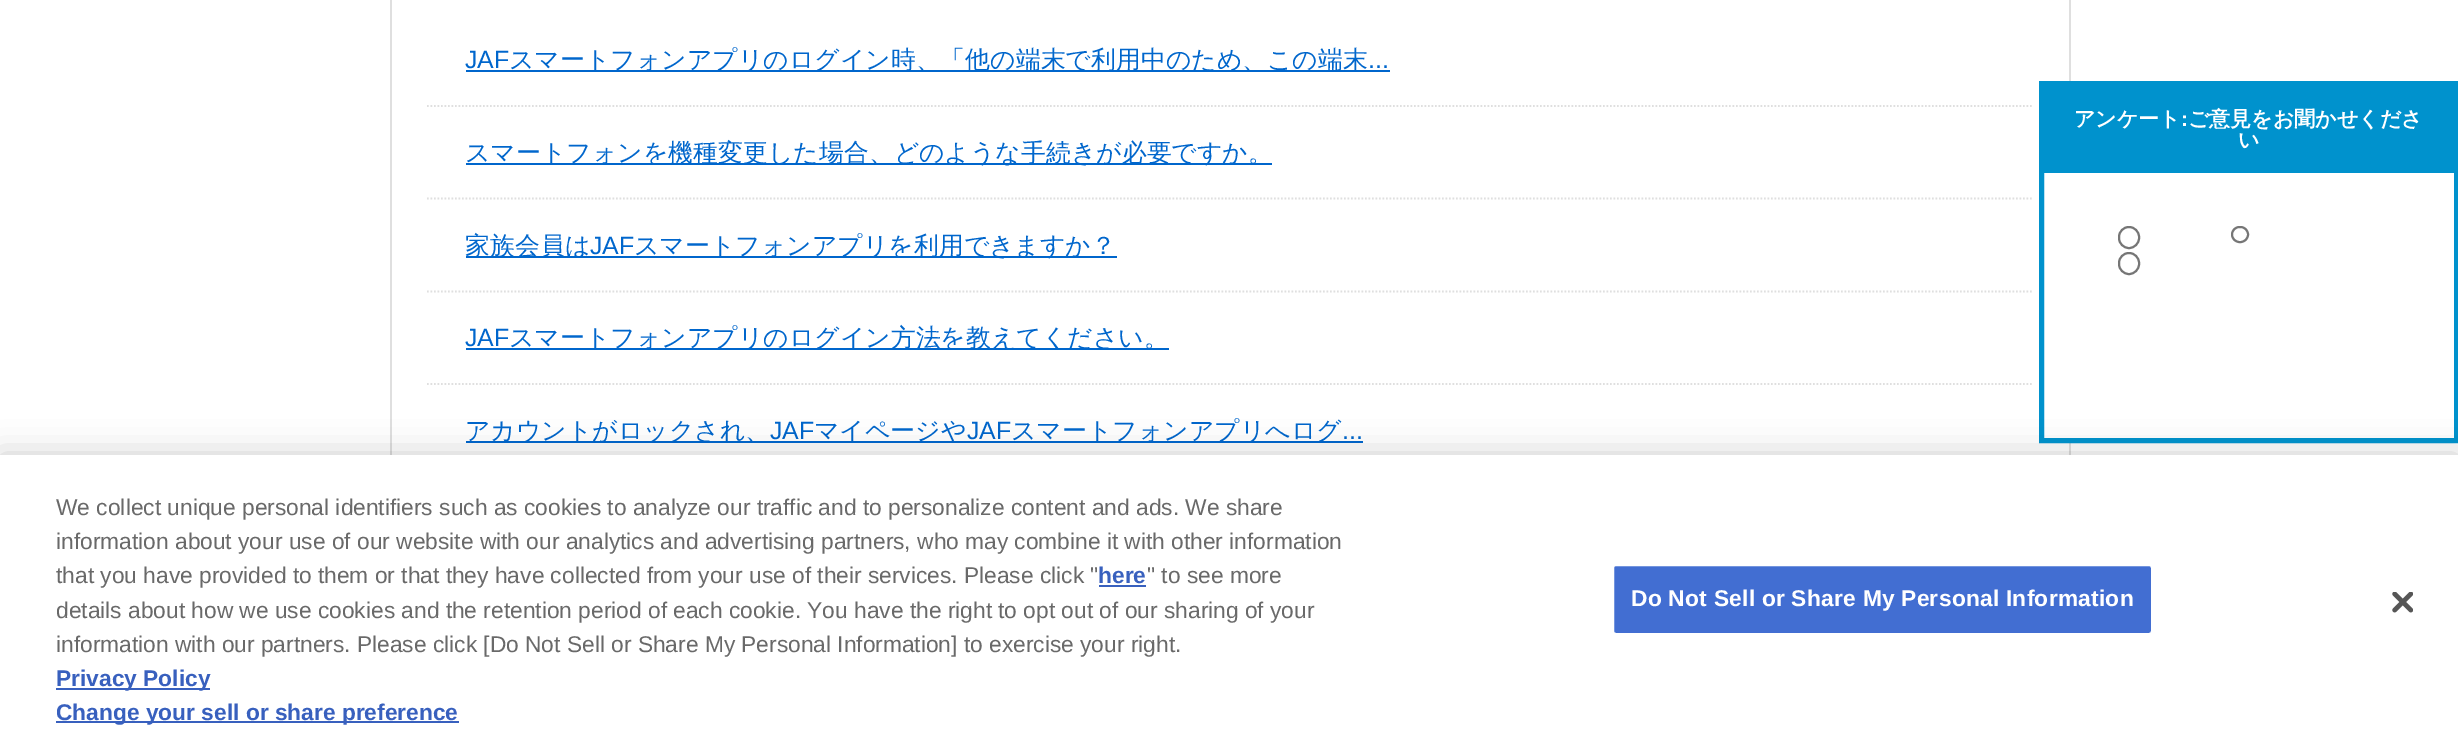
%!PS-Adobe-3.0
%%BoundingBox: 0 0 2458 747
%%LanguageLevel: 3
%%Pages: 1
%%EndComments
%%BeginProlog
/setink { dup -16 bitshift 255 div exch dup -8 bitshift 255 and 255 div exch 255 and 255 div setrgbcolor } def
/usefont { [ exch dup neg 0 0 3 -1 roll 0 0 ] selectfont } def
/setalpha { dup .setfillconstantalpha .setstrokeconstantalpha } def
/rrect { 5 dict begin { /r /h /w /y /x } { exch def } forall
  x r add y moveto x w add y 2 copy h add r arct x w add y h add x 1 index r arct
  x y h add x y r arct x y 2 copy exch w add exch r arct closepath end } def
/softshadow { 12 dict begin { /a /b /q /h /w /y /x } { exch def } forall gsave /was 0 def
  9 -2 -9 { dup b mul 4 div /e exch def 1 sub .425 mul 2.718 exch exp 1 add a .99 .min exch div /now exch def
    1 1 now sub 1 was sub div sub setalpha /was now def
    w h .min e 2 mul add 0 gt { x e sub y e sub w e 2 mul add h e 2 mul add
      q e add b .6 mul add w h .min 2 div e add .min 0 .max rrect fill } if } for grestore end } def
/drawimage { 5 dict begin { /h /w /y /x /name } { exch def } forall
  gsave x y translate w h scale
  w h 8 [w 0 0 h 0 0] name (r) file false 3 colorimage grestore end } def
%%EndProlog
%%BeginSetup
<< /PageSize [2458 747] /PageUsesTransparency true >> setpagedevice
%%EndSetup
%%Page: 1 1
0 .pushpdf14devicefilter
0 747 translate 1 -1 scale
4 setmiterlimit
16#FFFFFF setink
0 0 2458 747 rectfill
16#DFDFDF setink
2069 0 2 455 rectfill
390 0 2 455 rectfill
1.8 setlinewidth
[1.75 1.75] 0 setdash
427 106 moveto 2033.5 106 lineto stroke
/LiberationSans-Regular 24.9 usefont
16#0066CC setink
465 68 moveto (JAF) show
466 70 924 2 rectfill
/WenQuanYiZenHei-Medium 24.9 usefont
509 68 moveto (スマートフォンアプリのログイン時、「他の端末で利用中のため、この端末) show
/LiberationSans-Regular 24.9 usefont
1368 68 moveto (...) show
16#DFDFDF setink
427 198.5 moveto 2033.5 198.5 lineto stroke
16#0066CC setink
466 163 806 2 rectfill
/WenQuanYiZenHei-Medium 24.9 usefont
465 161 moveto (スマートフォンを機種変更した場合、どのような手続きが必要ですか。) show
16#DFDFDF setink
427 291.5 moveto 2033.5 291.5 lineto stroke
16#0066CC setink
466 256 651 2 rectfill
465 254 moveto (家族会員は) show
/LiberationSans-Regular 24.9 usefont
590 254 moveto (JAF) show
/WenQuanYiZenHei-Medium 24.9 usefont
634 254 moveto (スマートフォンアプリを利用できますか？) show
16#DFDFDF setink
427 384 moveto 2033.5 384 lineto stroke
/LiberationSans-Regular 24.9 usefont
16#0066CC setink
465 346 moveto (JAF) show
466 348 703 2 rectfill
/WenQuanYiZenHei-Medium 24.9 usefont
509 346 moveto (スマートフォンアプリのログイン方法を教えてください。) show
466 441 897 2 rectfill
465 439 moveto (アカウントがロックされ、) show
/LiberationSans-Regular 24.9 usefont
770 439 moveto (JAF) show
/WenQuanYiZenHei-Medium 24.9 usefont
814 439 moveto (マイページや) show
/LiberationSans-Regular 24.9 usefont
967 439 moveto (JAF) show
/WenQuanYiZenHei-Medium 24.9 usefont
1011 439 moveto (スマートフォンアプリへログ) show
/LiberationSans-Regular 24.9 usefont
1342 439 moveto (...) show
16#FFFFFF setink
2069 173 2 265 rectfill
16#0092CD setink
5 setlinewidth
[] 0 setdash
2041.5 83.5 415 357 rectstroke
2044 86 410 87 rectfill
/WenQuanYiZenHei-Bold 21 usefont
16#FFFFFF setink
2074 126 moveto (アンケート) show
/LiberationSans-Bold 21 usefont
2181 126 moveto (:) show
/WenQuanYiZenHei-Bold 21 usefont
2188 126 moveto (ご意見をお聞かせくださ) show
2238 147 moveto (い) show
16#767676 setink
2 setlinewidth
2119 227 20 21 10 rrect stroke
2232 227 16 15 7.5 rrect stroke
2119 253 20 21 10 rrect stroke
16#000000 setink
0 455 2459 292 0 16 0.2 softshadow
16#FFFFFF setink
0 455 2458 292 rectfill
/LiberationSans-Regular 22.75 usefont
16#696969 setink
[
    [(We collect unique personal identifiers such as cookies to analyze our traffic and to personalize content and ads. We share) 56 515]
    [(information about your use of our website with our analytics and advertising partners, who may combine it with other information) 56 549]
    [(that you have provided to them or that they have collected from your use of their services. Please click ") 56 583]
] { aload pop moveto show } forall
/LiberationSans-Bold 22.75 usefont
16#3860BE setink
1098 583 moveto (here) show
1099 585 47 2 rectfill
/LiberationSans-Regular 22.75 usefont
16#696969 setink
[
    [(" to see more) 1147 583]
    [(details about how we use cookies and the retention period of each cookie. You have the right to opt out of our sharing of your) 56 618]
    [(information with our partners. Please click [Do Not Sell or Share My Personal Information] to exercise your right.) 56 652]
] { aload pop moveto show } forall
16#3860BE setink
56 688 154 2 rectfill
/LiberationSans-Bold 22.75 usefont
56 686 moveto (Privacy Policy) show
56 721 403 2 rectfill
56 720 moveto (Change your sell or share preference) show
16#426ED2 setink
1613 565 539 69 3 rrect gsave fill grestore
16#FFFFFF setink
stroke
1631 606 moveto 0.25 0 (Do Not Sell or Share My Personal Information) ashow
(img1.raw) 2392 592 21 21 drawimage
.poppdf14devicefilter showpage
%%EOF
